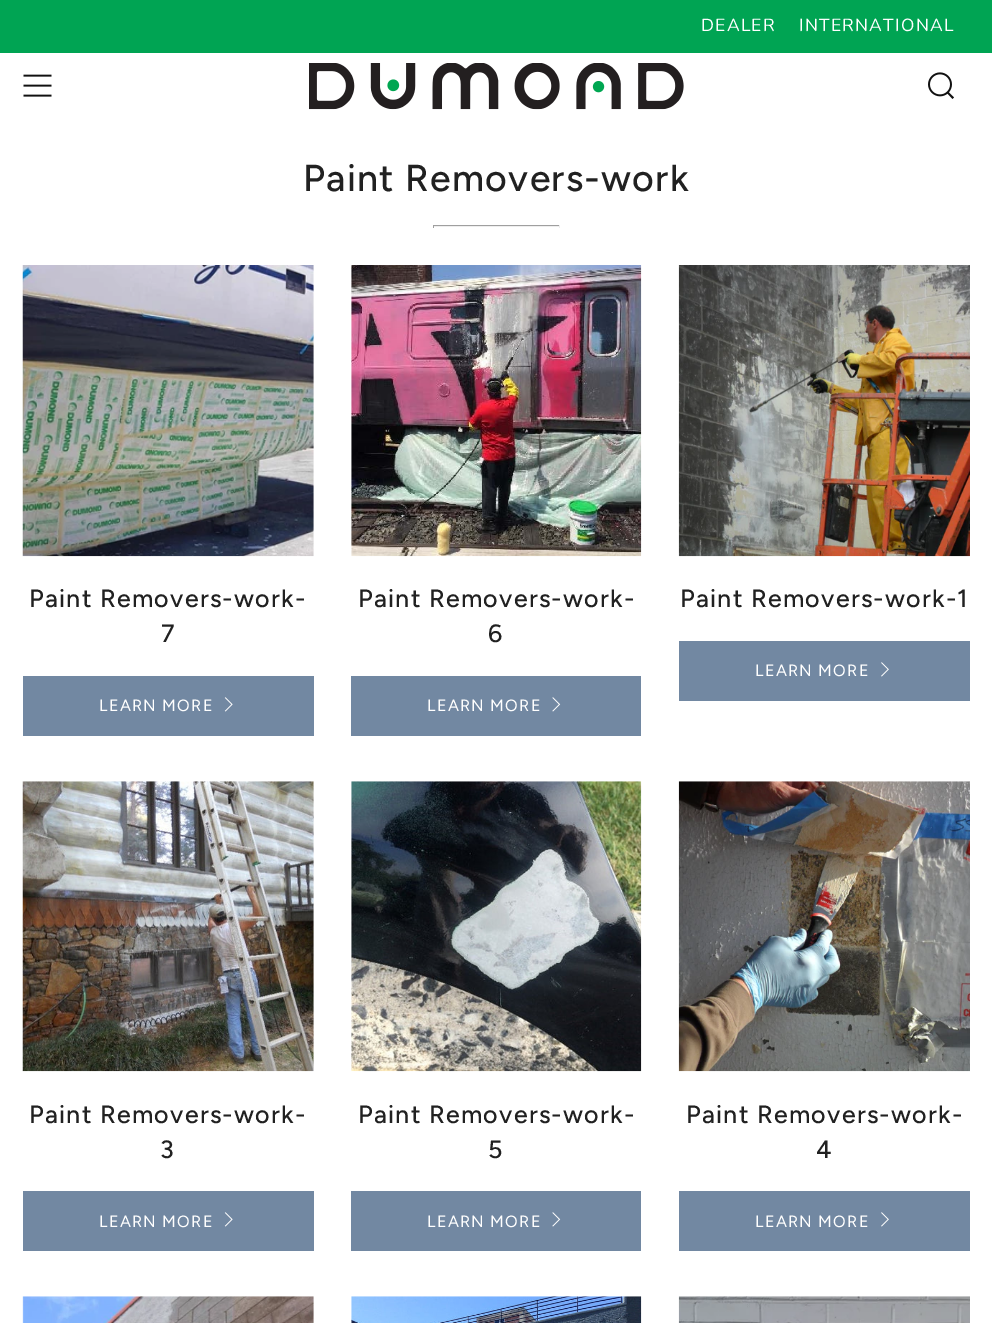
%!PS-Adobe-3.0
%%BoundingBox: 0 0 992 1323
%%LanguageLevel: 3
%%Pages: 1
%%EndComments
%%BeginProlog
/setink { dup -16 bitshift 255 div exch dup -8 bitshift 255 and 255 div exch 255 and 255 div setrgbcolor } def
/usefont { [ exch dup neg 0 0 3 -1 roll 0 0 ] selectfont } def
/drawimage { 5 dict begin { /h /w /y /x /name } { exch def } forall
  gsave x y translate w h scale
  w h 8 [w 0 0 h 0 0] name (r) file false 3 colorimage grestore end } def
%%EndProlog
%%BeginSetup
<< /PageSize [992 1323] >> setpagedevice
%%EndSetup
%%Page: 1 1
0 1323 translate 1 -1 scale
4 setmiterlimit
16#FFFFFF setink
0 0 992 1323 rectfill
16#00A453 setink
0 0 992 53 rectfill
/Nunito-Regular 17.5 usefont
16#FFFFFF setink
701 31 moveto 1.25 0 (DEALER) ashow
799 31 moveto 1.25 0 (INTERNATIONAL) ashow
(img1.raw) 23 74 29 23 drawimage
(img2.raw) 309 63 375 47 drawimage
(img3.raw) 928 72 26 27 drawimage
/Figtree-Medium 37.5 usefont
16#212121 setink
303 191 moveto 1.25 0 (Paint Removers-work) ashow
[
    [433 225 127 1 16#9F9F9F]
    [559 225 1 3 16#EEEEEE]
    [433 226 127 1 16#EEEEEE]
    [433 225 1 3 16#9F9F9F]
] { aload pop setink rectfill } forall
(img4.raw) 22 265 292 292 drawimage
/Figtree-Medium 25 usefont
16#212121 setink
29 607 moveto 1.25 0 (Paint Removers-work-) ashow
161 642 moveto 1.25 0 (7) ashow
16#7288A2 setink
23 676 291 60 rectfill
/Figtree-Regular 16.25 usefont
16#FFFFFF setink
99 711 moveto 1.25 0 (LEARN MORE) ashow
(img5.raw) 224 697 9 15 drawimage
(img6.raw) 351 265 291 292 drawimage
/Figtree-Medium 25 usefont
16#212121 setink
358 607 moveto 1.25 0 (Paint Removers-work-) ashow
488 642 moveto 1.25 0 (6) ashow
16#7288A2 setink
351 676 290 60 rectfill
/Figtree-Regular 16.25 usefont
16#FFFFFF setink
427 711 moveto 1.25 0 (LEARN MORE) ashow
(img7.raw) 552 697 9 15 drawimage
(img8.raw) 678 265 292 292 drawimage
/Figtree-Medium 25 usefont
16#212121 setink
680 607 moveto 1.25 0 (Paint Removers-work-1) ashow
16#7288A2 setink
679 641 291 60 rectfill
/Figtree-Regular 16.25 usefont
16#FFFFFF setink
755 676 moveto 1.25 0 (LEARN MORE) ashow
(img9.raw) 881 662 8 15 drawimage
(img10.raw) 22 781 292 291 drawimage
/Figtree-Medium 25 usefont
16#212121 setink
29 1123 moveto 1.25 0 (Paint Removers-work-) ashow
160 1158 moveto 1.25 0 (3) ashow
16#7288A2 setink
23 1191 291 60 rectfill
/Figtree-Regular 16.25 usefont
16#FFFFFF setink
99 1227 moveto 1.25 0 (LEARN MORE) ashow
(img5.raw) 224 1212 9 15 drawimage
(img11.raw) 351 781 291 291 drawimage
/Figtree-Medium 25 usefont
16#212121 setink
358 1123 moveto 1.25 0 (Paint Removers-work-) ashow
488 1158 moveto 1.25 0 (5) ashow
16#7288A2 setink
351 1191 290 60 rectfill
/Figtree-Regular 16.25 usefont
16#FFFFFF setink
427 1227 moveto 1.25 0 (LEARN MORE) ashow
(img7.raw) 552 1212 9 15 drawimage
(img12.raw) 678 781 292 291 drawimage
/Figtree-Medium 25 usefont
16#212121 setink
686 1123 moveto 1.25 0 (Paint Removers-work-) ashow
816 1158 moveto 1.25 0 (4) ashow
16#7288A2 setink
679 1191 291 60 rectfill
/Figtree-Regular 16.25 usefont
16#FFFFFF setink
755 1227 moveto 1.25 0 (LEARN MORE) ashow
(img9.raw) 881 1212 8 15 drawimage
(img13.raw) 22 1296 292 27 drawimage
(img14.raw) 351 1296 291 27 drawimage
(img15.raw) 678 1296 292 27 drawimage
showpage
%%EOF
